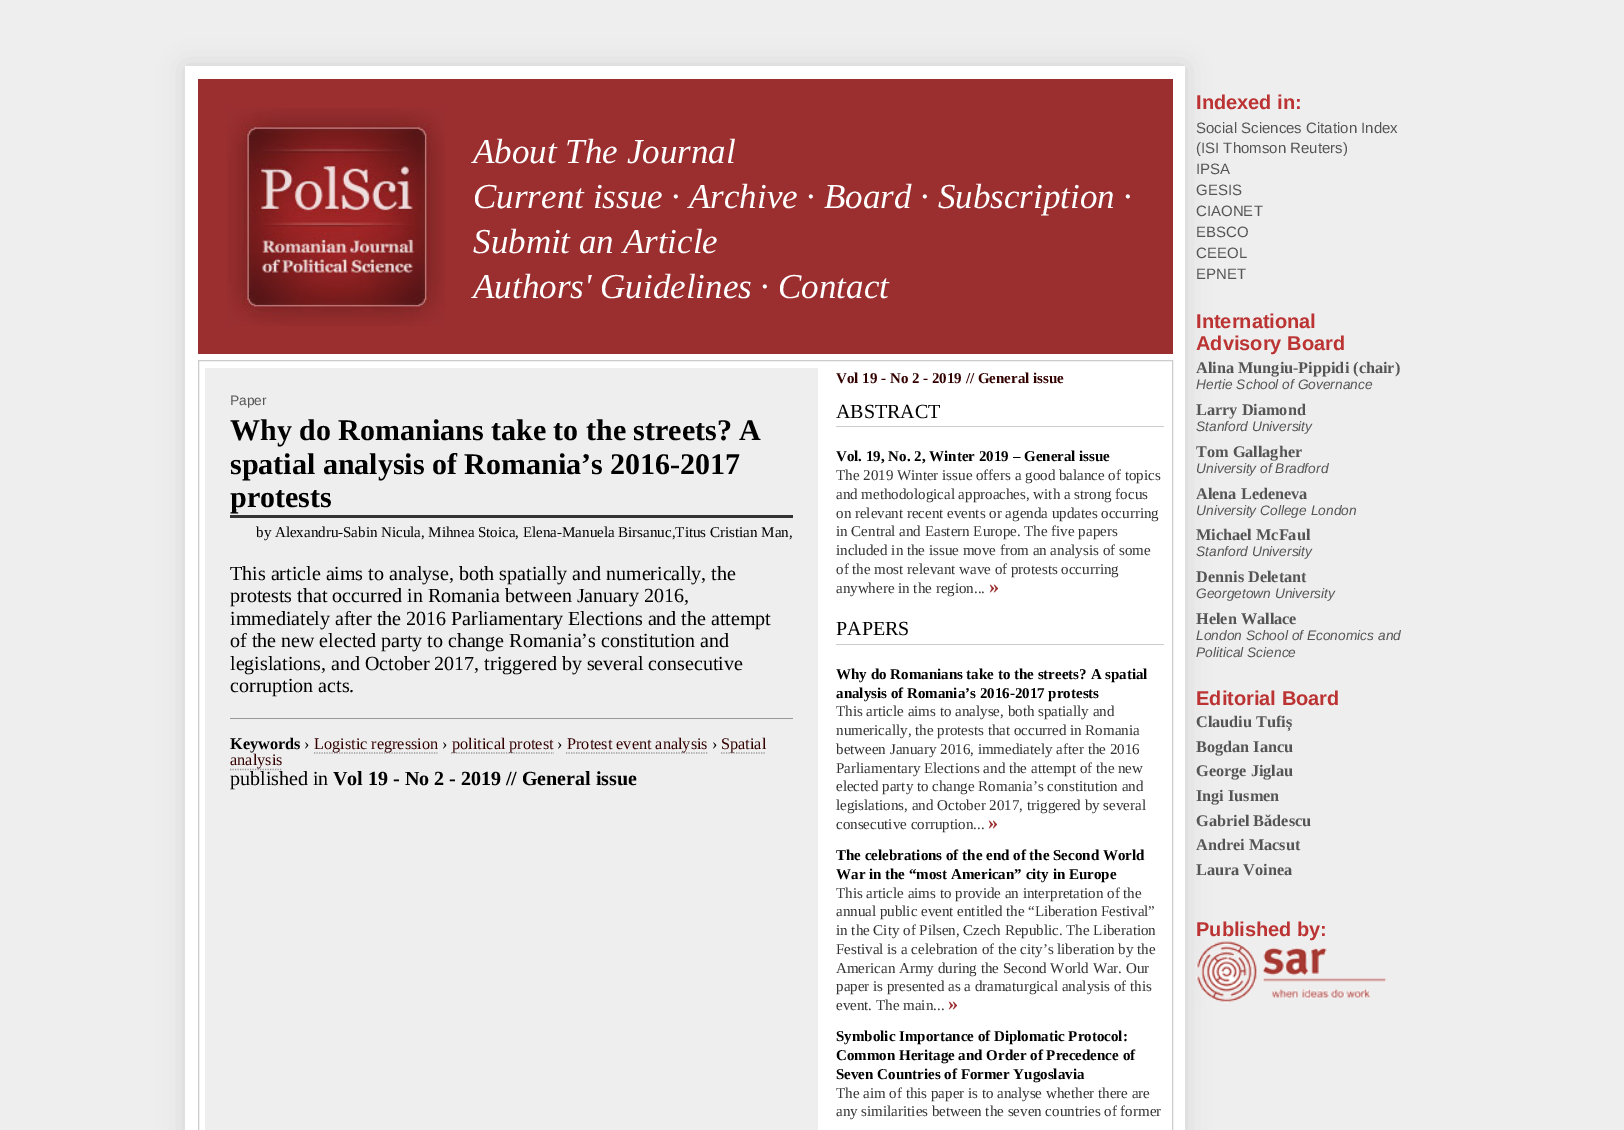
%!PS-Adobe-3.0
%%BoundingBox: 0 0 1624 1130
%%LanguageLevel: 3
%%Pages: 1
%%EndComments
%%BeginProlog
/setink { dup -16 bitshift 255 div exch dup -8 bitshift 255 and 255 div exch 255 and 255 div setrgbcolor } def
/usefont { [ exch dup neg 0 0 3 -1 roll 0 0 ] selectfont } def
/setalpha { dup .setfillconstantalpha .setstrokeconstantalpha } def
/rrect { 5 dict begin { /r /h /w /y /x } { exch def } forall
  x r add y moveto x w add y 2 copy h add r arct x w add y h add x 1 index r arct
  x y h add x y r arct x y 2 copy exch w add exch r arct closepath end } def
/softshadow { 12 dict begin { /a /b /q /h /w /y /x } { exch def } forall gsave /was 0 def
  9 -2 -9 { dup b mul 4 div /e exch def 1 sub .425 mul 2.718 exch exp 1 add a .99 .min exch div /now exch def
    1 1 now sub 1 was sub div sub setalpha /was now def
    w h .min e 2 mul add 0 gt { x e sub y e sub w e 2 mul add h e 2 mul add
      q e add b .6 mul add w h .min 2 div e add .min 0 .max rrect fill } if } for grestore end } def
/drawimage { 5 dict begin { /h /w /y /x /name } { exch def } forall
  gsave x y translate w h scale
  w h 8 [w 0 0 h 0 0] name (r) file false 3 colorimage grestore end } def
%%EndProlog
%%BeginSetup
<< /PageSize [1624 1130] /PageUsesTransparency true >> setpagedevice
%%EndSetup
%%Page: 1 1
0 .pushpdf14devicefilter
0 1130 translate 1 -1 scale
4 setmiterlimit
16#EEEEEE setink
0 0 1624 1130 rectfill
16#D0D0D0 setink
185 66 1000 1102 0 12.5 1 softshadow
16#FFFFFF setink
185 66 1000 1064 rectfill
16#9B2F30 setink
198 79 975 275 rectfill
(img1.raw) 227 108 218 218 drawimage
/LiberationSerif-Italic 35 usefont
16#FFFFFF setink
[
    [(About The Journal) 473 163]
    [(Current issue · Archive · Board · Subscription ·) 473 208]
    [(Submit an Article) 473 253]
    [(Authors' Guidelines · Contact) 473 298]
] { aload pop moveto show } forall
16#CCCCCC setink
198.5 360.5 974 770 rectstroke
16#EEEEEE setink
205 368 613 762 rectfill
/LiberationSans-Regular 13.75 usefont
16#555555 setink
230 405 moveto (Paper) show
16#333333 setink
230 515 563 3 rectfill
/LiberationSerif-Bold 30 usefont
16#000000 setink
[
    [(Why do Romanians take to the streets? A) 230 440]
    [(spatial analysis of Romania’s 2016-2017) 230 474]
    [(protests) 230 507]
] { aload pop moveto show } forall
/LiberationSerif-Regular 15 usefont
256 537 moveto (by Alexandru-Sabin Nicula, Mihnea Stoica, Elena-Manuela Birsanuc,Titus Cristian Man,) show
/LiberationSerif-Regular 20 usefont
[
    [(This article aims to analyse, both spatially and numerically, the) 230 580]
    [(protests that occurred in Romania between January 2016,) 230 602]
    [(immediately after the 2016 Parliamentary Elections and the attempt) 230 625]
    [(of the new elected party to change Romania’s constitution and) 230 647]
    [(legislations, and October 2017, triggered by several consecutive) 230 670]
    [(corruption acts.) 230 692]
] { aload pop moveto show } forall
16#999999 setink
230 718 563 1 rectfill
/LiberationSerif-Bold 16.25 usefont
16#000000 setink
230 749 moveto (Keywords) show
/LiberationSerif-Regular 16.25 usefont
304 749 moveto (›) show
16#999999 setink
1.2 setlinewidth
[1.25 1.25] 0 setdash
314 753 moveto 437.5 753 lineto stroke
16#330000 setink
314 749 moveto (Logistic regression) show
16#000000 setink
442 749 moveto (›) show
16#999999 setink
451 753 moveto 554 753 lineto stroke
16#330000 setink
452 749 moveto (political protest) show
16#000000 setink
557 749 moveto (›) show
16#999999 setink
566 753 moveto 707.5 753 lineto stroke
16#330000 setink
567 749 moveto (Protest event analysis) show
16#000000 setink
712 749 moveto (›) show
16#999999 setink
721 753 moveto 766 753 lineto stroke
16#330000 setink
721 749 moveto (Spatial) show
16#999999 setink
230 769.5 moveto 282.5 769.5 lineto stroke
16#330000 setink
230 765 moveto (analysis) show
/LiberationSerif-Regular 20 usefont
16#000000 setink
230 785 moveto (published in) show
/LiberationSerif-Bold 20 usefont
333 785 moveto (Vol 19 - No 2 - 2019 // General issue) show
/LiberationSerif-Bold 15 usefont
16#330000 setink
836 383 moveto (Vol 19 - No 2 - 2019 // General issue) show
16#CCCCCC setink
836 426 328 1 rectfill
/LiberationSerif-Regular 20 usefont
16#000000 setink
836 418 moveto (ABSTRACT) show
/LiberationSerif-Bold 15 usefont
836 461 moveto (Vol. 19, No. 2, Winter 2019 – General issue) show
/LiberationSerif-Regular 15 usefont
16#333333 setink
[
    [(The 2019 Winter issue offers a good balance of topics) 836 480]
    [(and methodological approaches, with a strong focus) 836 499]
    [(on relevant recent events or agenda updates occurring) 836 518]
    [(in Central and Eastern Europe. The five papers) 836 536]
    [(included in the issue move from an analysis of some) 836 555]
    [(of the most relevant wave of protests occurring) 836 574]
    [(anywhere in the region...) 836 593]
] { aload pop moveto show } forall
/LiberationSerif-Bold 20 usefont
16#9B2F30 setink
989 593 moveto (») show
16#CCCCCC setink
836 644 328 1 rectfill
/LiberationSerif-Regular 20 usefont
16#000000 setink
836 635 moveto (PAPERS) show
/LiberationSerif-Bold 15 usefont
836 679 moveto (Why do Romanians take to the streets? A spatial) show
836 698 moveto (analysis of Romania’s 2016-2017 protests) show
/LiberationSerif-Regular 15 usefont
16#333333 setink
[
    [(This article aims to analyse, both spatially and) 836 716]
    [(numerically, the protests that occurred in Romania) 836 735]
    [(between January 2016, immediately after the 2016) 836 754]
    [(Parliamentary Elections and the attempt of the new) 836 773]
    [(elected party to change Romania’s constitution and) 836 791]
    [(legislations, and October 2017, triggered by several) 836 810]
    [(consecutive corruption...) 836 829]
] { aload pop moveto show } forall
/LiberationSerif-Bold 20 usefont
16#9B2F30 setink
988 829 moveto (») show
/LiberationSerif-Bold 15 usefont
16#000000 setink
836 860 moveto (The celebrations of the end of the Second World) show
836 879 moveto (War in the “most American” city in Europe) show
/LiberationSerif-Regular 15 usefont
16#333333 setink
[
    [(This article aims to provide an interpretation of the) 836 898]
    [(annual public event entitled the “Liberation Festival”) 836 916]
    [(in the City of Pilsen, Czech Republic. The Liberation) 836 935]
    [(Festival is a celebration of the city’s liberation by the) 836 954]
    [(American Army during the Second World War. Our) 836 973]
    [(paper is presented as a dramaturgical analysis of this) 836 991]
    [(event. The main...) 836 1010]
] { aload pop moveto show } forall
/LiberationSerif-Bold 20 usefont
16#9B2F30 setink
948 1010 moveto (») show
/LiberationSerif-Bold 15 usefont
16#000000 setink
[
    [(Symbolic Importance of Diplomatic Protocol:) 836 1041]
    [(Common Heritage and Order of Precedence of) 836 1060]
    [(Seven Countries of Former Yugoslavia) 836 1079]
] { aload pop moveto show } forall
/LiberationSerif-Regular 15 usefont
16#333333 setink
836 1098 moveto (The aim of this paper is to analyse whether there are) show
836 1116 moveto (any similarities between the seven countries of former) show
/LiberationSans-Bold 20 usefont
16#BB3333 setink
1196 109 moveto (Indexed in:) show
/LiberationSans-Regular 15 usefont
16#555555 setink
[
    [(Social Sciences Citation Index) 1196 133]
    [(\(ISI Thomson Reuters\)) 1196 153]
    [(IPSA) 1196 174]
    [(GESIS) 1196 195]
    [(CIAONET) 1196 216]
    [(EBSCO) 1196 237]
    [(CEEOL) 1196 258]
    [(EPNET) 1196 279]
] { aload pop moveto show } forall
/LiberationSans-Bold 20 usefont
16#BB3333 setink
1196 328 moveto (International) show
1196 350 moveto (Advisory Board) show
/LiberationSerif-Bold 16.25 usefont
16#555555 setink
1196 373 moveto (Alina Mungiu-Pippidi \(chair\)) show
/LiberationSans-Italic 13.75 usefont
1196 389 moveto (Hertie School of Governance) show
/LiberationSerif-Bold 16.25 usefont
1196 415 moveto (Larry Diamond) show
/LiberationSans-Italic 13.75 usefont
1196 431 moveto (Stanford University) show
/LiberationSerif-Bold 16.25 usefont
1196 457 moveto (Tom Gallagher) show
/LiberationSans-Italic 13.75 usefont
1196 473 moveto (University of Bradford) show
/LiberationSerif-Bold 16.25 usefont
1196 499 moveto (Alena Ledeneva) show
/LiberationSans-Italic 13.75 usefont
1196 515 moveto (University College London) show
/LiberationSerif-Bold 16.25 usefont
1196 540 moveto (Michael McFaul) show
/LiberationSans-Italic 13.75 usefont
1196 556 moveto (Stanford University) show
/LiberationSerif-Bold 16.25 usefont
1196 582 moveto (Dennis Deletant) show
/LiberationSans-Italic 13.75 usefont
1196 598 moveto (Georgetown University) show
/LiberationSerif-Bold 16.25 usefont
1196 624 moveto (Helen Wallace) show
/LiberationSans-Italic 13.75 usefont
1196 640 moveto (London School of Economics and) show
1196 657 moveto (Political Science) show
/LiberationSans-Bold 20 usefont
16#BB3333 setink
1196 705 moveto (Editorial Board) show
/LiberationSerif-Bold 16.25 usefont
16#555555 setink
[
    [(Claudiu Tufiș) 1196 727]
    [(Bogdan Iancu) 1196 752]
    [(George Jiglau) 1196 776]
    [(Ingi Iusmen) 1196 801]
    [(Gabriel Bădescu) 1196 826]
    [(Andrei Macsut) 1196 850]
    [(Laura Voinea) 1196 875]
] { aload pop moveto show } forall
/LiberationSans-Bold 20 usefont
16#BB3333 setink
1196 936 moveto (Published by:) show
(img2.raw) 1196 941 191 62 drawimage
.poppdf14devicefilter showpage
%%EOF
